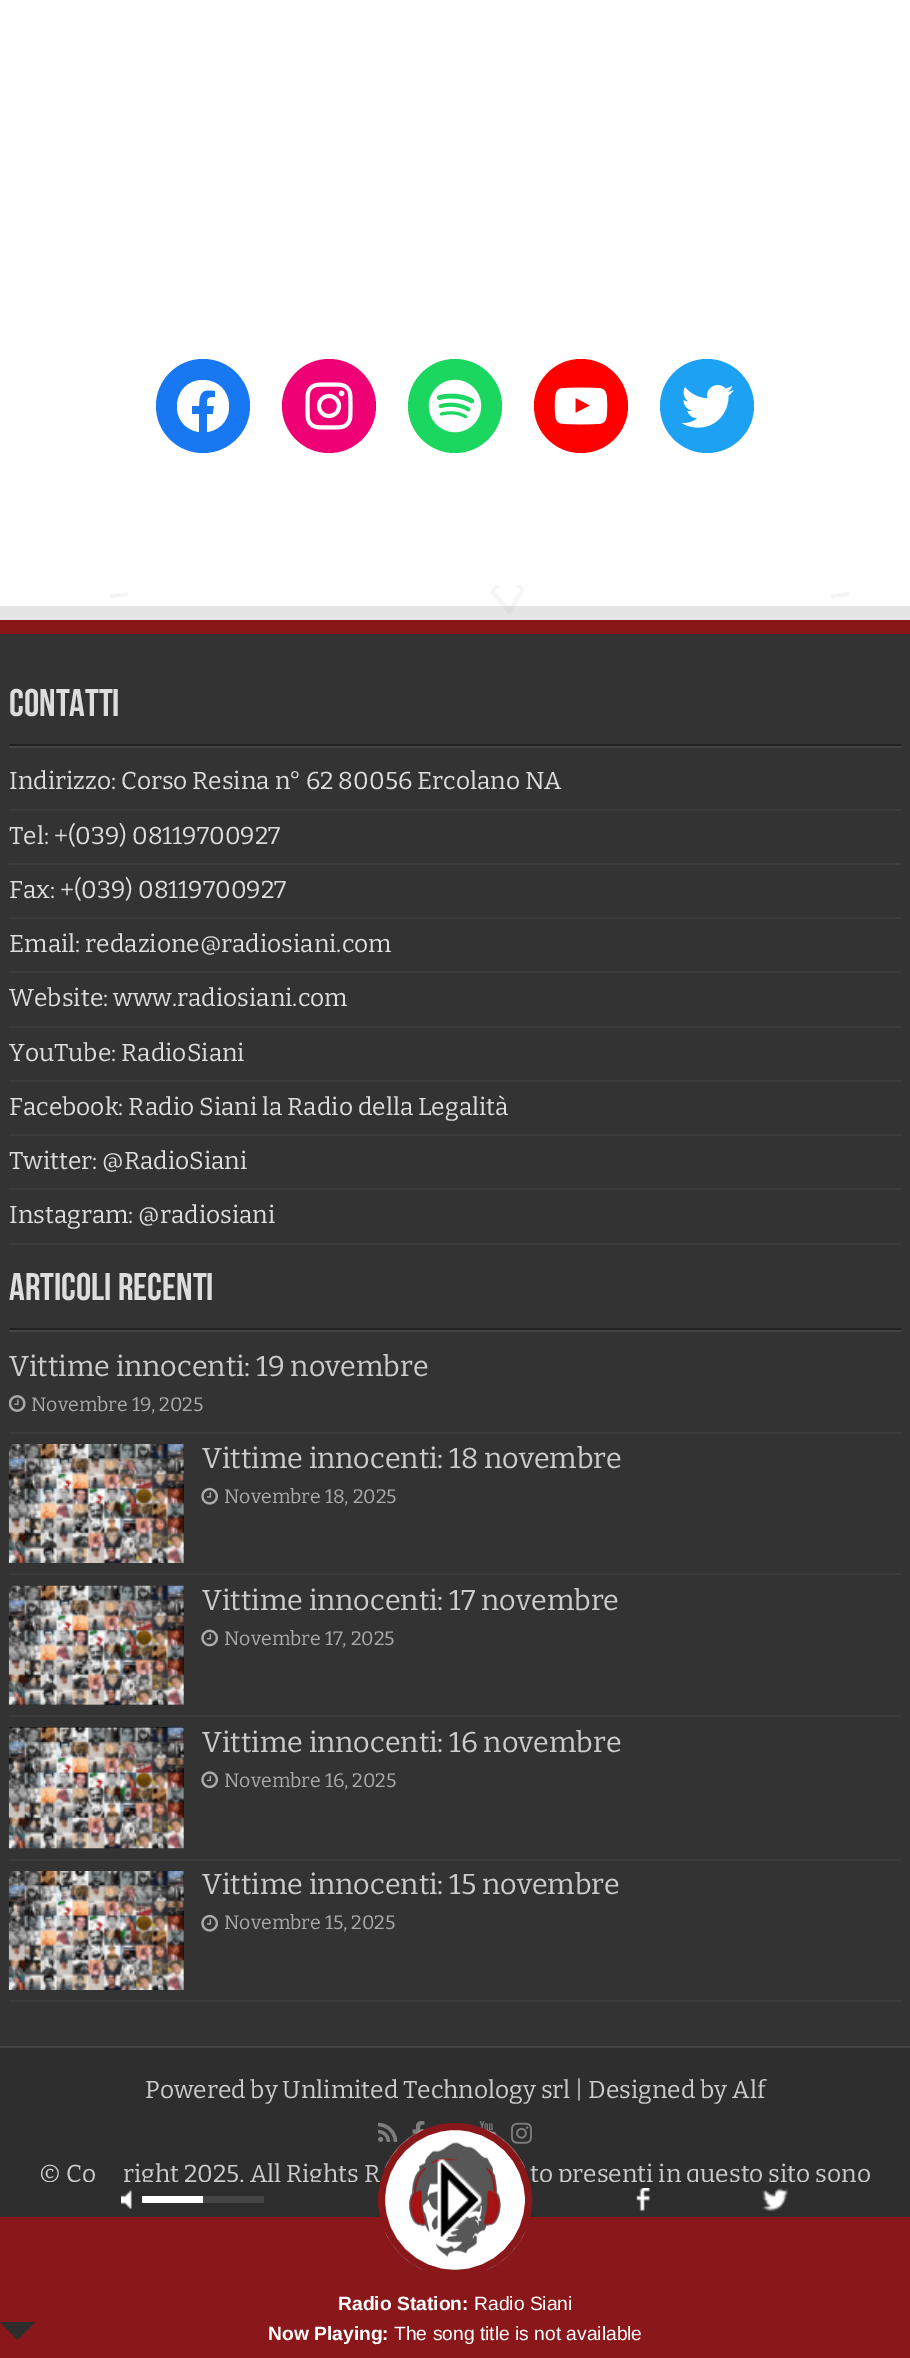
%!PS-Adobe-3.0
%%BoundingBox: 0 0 910 2358
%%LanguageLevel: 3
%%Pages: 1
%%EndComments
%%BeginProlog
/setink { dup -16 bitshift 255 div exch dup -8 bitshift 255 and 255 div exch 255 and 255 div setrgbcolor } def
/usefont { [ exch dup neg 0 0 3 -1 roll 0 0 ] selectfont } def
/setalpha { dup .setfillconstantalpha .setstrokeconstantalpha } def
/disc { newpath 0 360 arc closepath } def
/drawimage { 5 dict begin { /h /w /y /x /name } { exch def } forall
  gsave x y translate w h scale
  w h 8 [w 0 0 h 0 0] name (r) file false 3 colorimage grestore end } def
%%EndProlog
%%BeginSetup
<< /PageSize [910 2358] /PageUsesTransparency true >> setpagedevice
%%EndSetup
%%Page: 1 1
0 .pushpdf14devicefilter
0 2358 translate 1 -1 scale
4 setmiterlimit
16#FFFFFF setink
0 0 910 2358 rectfill
(img1.raw) 108 585 743 31 drawimage
16#1778F2 setink
203 406 47 disc fill
16#FFFFFF setink
203 380 moveto 171 380 167 427 199 432 curveto 199 414 lineto 192 414 lineto 192 406 lineto 199 406 lineto 199 394 201 388 215 391 curveto 215 397 lineto 207 397 207 399 207 406 curveto 214 406 lineto 213 414 lineto 207 414 lineto 207 432 lineto 239 427 235 380 203 380 curveto closepath fill
16#F00075 setink
329 406 47 disc fill
(img2.raw) 305 382 48 48 drawimage
16#1BD760 setink
455 406 47 disc fill
(img3.raw) 428 379 54 54 drawimage
16#FF0000 setink
581 406 47 disc fill
(img4.raw) 554 387 54 38 drawimage
16#1DA1F2 setink
707 406 47 disc fill
(img5.raw) 681 385 53 43 drawimage
0.1 setalpha
[
    [0 606 910 14 16#000000]
] { aload pop setink rectfill } forall
1 setalpha
[
    [0 634 910 1412 16#333333]
    [0 620 910 14 16#881617]
    [9 744 892 2 16#222222]
] { aload pop setink rectfill } forall
/BebasNeue-Bold 38.5 usefont
16#DDDDDD setink
9 716 moveto (Contatti) show
16#444444 setink
9 746 892 2 rectfill
16#3C3C3C setink
9 809 892 2 rectfill
/Bitter-Regular 24.5 usefont
16#DDDDDD setink
9 789 moveto (Indirizzo: Corso Resina n° 62 80056 Ercolano NA) show
16#3C3C3C setink
9 863 892 2 rectfill
16#DDDDDD setink
9 844 moveto (Tel: +\(039\) 08119700927) show
16#3C3C3C setink
9 917 892 2 rectfill
16#DDDDDD setink
9 898 moveto (Fax: +\(039\) 08119700927) show
16#3C3C3C setink
9 971 892 2 rectfill
16#DDDDDD setink
9 952 moveto (Email: redazione@radiosiani.com) show
16#3C3C3C setink
9 1026 892 2 rectfill
16#DDDDDD setink
9 1006 moveto (Website: www.radiosiani.com) show
16#3C3C3C setink
9 1080 892 2 rectfill
16#DDDDDD setink
9 1061 moveto (YouTube: RadioSiani) show
16#3C3C3C setink
9 1134 892 2 rectfill
16#DDDDDD setink
9 1115 moveto (Facebook: Radio Siani la Radio della Legalità) show
16#3C3C3C setink
9 1188 892 2 rectfill
16#DDDDDD setink
9 1169 moveto (Twitter: @RadioSiani) show
16#3C3C3C setink
9 1243 892 2 rectfill
16#DDDDDD setink
9 1223 moveto (Instagram: @radiosiani) show
16#222222 setink
9 1328 892 2 rectfill
/BebasNeue-Bold 38.5 usefont
16#DDDDDD setink
9 1300 moveto (Articoli Recenti) show
16#444444 setink
9 1330 892 2 rectfill
16#3C3C3C setink
9 1432 892 2 rectfill
/Bitter-Regular 28.7 usefont
16#CCCCCC setink
9 1376 moveto (Vittime innocenti: 19 novembre) show
(img6.raw) 9 1395 17 17 drawimage
/Bitter-Regular 19.5 usefont
16#AAAAAA setink
31 1411 moveto (Novembre 19, 2025) show
16#3C3C3C setink
9 1573 892 2 rectfill
(img7.raw) 8 1444 176 119 drawimage
/Bitter-Regular 28.7 usefont
16#CCCCCC setink
202 1468 moveto (Vittime innocenti: 18 novembre) show
(img8.raw) 201 1487 17 18 drawimage
/Bitter-Regular 19.5 usefont
16#AAAAAA setink
224 1503 moveto (Novembre 18, 2025) show
16#3C3C3C setink
9 1715 892 2 rectfill
16#000000 setink
9 1586 175 119 rectfill
(img9.raw) 8 1585 176 120 drawimage
/Bitter-Regular 28.7 usefont
16#CCCCCC setink
202 1610 moveto (Vittime innocenti: 17 novembre) show
(img10.raw) 201 1629 17 18 drawimage
/Bitter-Regular 19.5 usefont
16#AAAAAA setink
224 1645 moveto (Novembre 17, 2025) show
16#3C3C3C setink
9 1859 892 2 rectfill
16#000000 setink
9 1727 175 121 rectfill
(img11.raw) 8 1727 176 122 drawimage
/Bitter-Regular 28.7 usefont
16#CCCCCC setink
202 1752 moveto (Vittime innocenti: 16 novembre) show
(img12.raw) 201 1771 17 18 drawimage
/Bitter-Regular 19.5 usefont
16#AAAAAA setink
224 1787 moveto (Novembre 16, 2025) show
16#3C3C3C setink
9 2000 892 2 rectfill
(img7.raw) 8 1871 176 119 drawimage
/Bitter-Regular 28.7 usefont
16#CCCCCC setink
202 1894 moveto (Vittime innocenti: 15 novembre) show
(img8.raw) 201 1914 17 18 drawimage
/Bitter-Regular 19.5 usefont
16#AAAAAA setink
224 1929 moveto (Novembre 15, 2025) show
16#2E2E2E setink
0 2048 910 134 rectfill
16#444444 setink
0 2046 910 2 rectfill
/Bitter-Regular 24.5 usefont
16#CCCCCC setink
145 2098 moveto (Powered by Unlimited Technology srl | Designed by Alf) show
(img13.raw) 378 2122 20 20 drawimage
(img14.raw) 412 2121 13 13 drawimage
(img15.raw) 479 2121 18 15 drawimage
(img16.raw) 511 2122 21 22 drawimage
[
    [(© Co) 39 2182]
    [(right 2025, All Rights R) 123 2182]
    [(to presenti in questo sito sono) 530 2182]
] { aload pop moveto show } forall
16#8A1719 setink
0 2217 910 141 rectfill
16#2D2D2D setink
0 2322 moveto 35 2322 lineto 17.5 2340 lineto closepath fill
0 2182 910 35 rectfill
(img17.raw) 385 2129 140 141 drawimage
16#8A1719 setink
7 setlinewidth
455 2200 73.5 disc stroke
(img18.raw) 121 2190 11 19 drawimage
16#454545 setink
203 2196 61 7 rectfill
16#FFFFFF setink
142 2196 61 7 rectfill
(img19.raw) 437 2159 45 81 drawimage
(img20.raw) 636 2188 14 24 drawimage
(img21.raw) 762 2188 26 24 drawimage
/LiberationSans-Bold 19.25 usefont
338 2310 moveto (Radio Station:) show
/LiberationSans-Regular 19.25 usefont
474 2310 moveto (Radio Siani) show
/LiberationSans-Bold 19.25 usefont
268 2340 moveto (Now Playing:) show
/LiberationSans-Regular 19.25 usefont
394 2340 moveto (The song title is not available) show
.poppdf14devicefilter showpage
%%EOF
